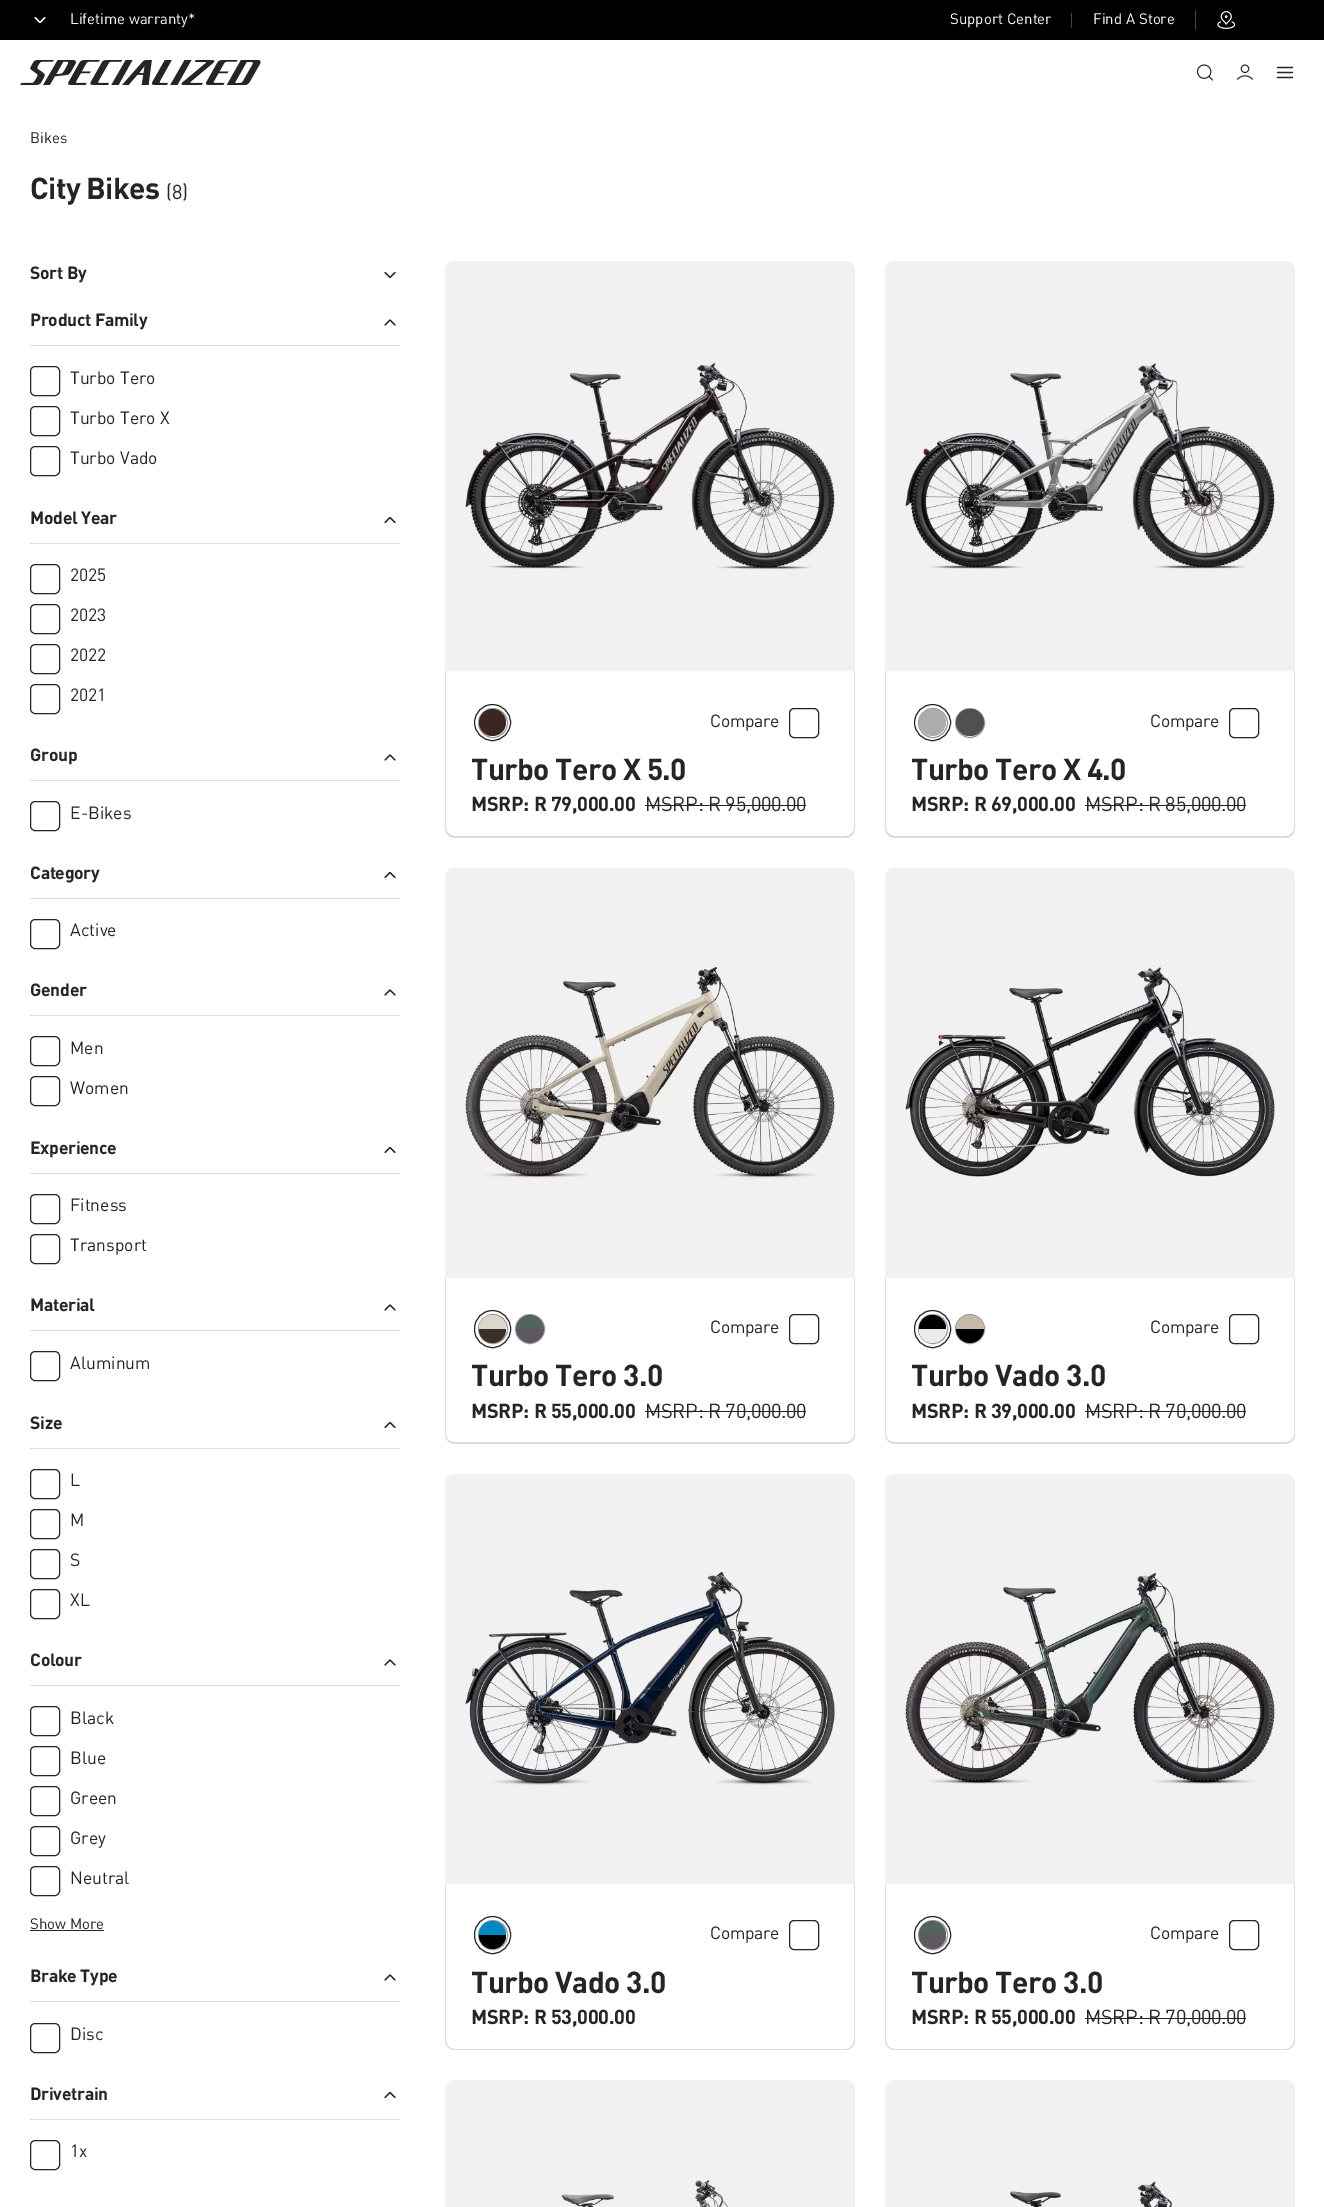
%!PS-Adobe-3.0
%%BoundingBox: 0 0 1324 2207
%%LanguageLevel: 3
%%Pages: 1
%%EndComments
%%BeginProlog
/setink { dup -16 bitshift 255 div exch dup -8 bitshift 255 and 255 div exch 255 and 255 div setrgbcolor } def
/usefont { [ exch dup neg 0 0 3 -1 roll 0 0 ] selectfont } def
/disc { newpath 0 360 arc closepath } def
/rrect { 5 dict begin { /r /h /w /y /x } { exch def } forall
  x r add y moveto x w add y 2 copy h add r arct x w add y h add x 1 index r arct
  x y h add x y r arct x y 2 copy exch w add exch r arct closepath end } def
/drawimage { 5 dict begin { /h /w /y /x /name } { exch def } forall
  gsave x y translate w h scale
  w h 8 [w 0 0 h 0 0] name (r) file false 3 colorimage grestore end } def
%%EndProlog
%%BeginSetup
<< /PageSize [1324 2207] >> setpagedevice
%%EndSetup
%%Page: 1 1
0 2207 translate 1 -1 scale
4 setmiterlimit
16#FFFFFF setink
0 0 1324 2207 rectfill
16#000000 setink
0 0 1324 40 rectfill
16#FFFFFF setink
1.2 setlinewidth
1 setlinecap
1 setlinejoin
35 17.5 moveto 40 22.5 lineto 45 17.5 lineto stroke
/DIN-Regular 15 usefont
70 24 moveto (Lifetime warranty*) show
950 24 moveto (Support Center) show
16#464646 setink
1071 13 1 15 rectfill
16#FFFFFF setink
1093 24 moveto (Find A Store) show
16#464646 setink
1195 10 1 20 rectfill
(img1.raw) 1217 11 19 18 drawimage
(img2.raw) 20 60 241 25 drawimage
(img3.raw) 1196 64 17 17 drawimage
(img4.raw) 1236 64 18 16 drawimage
16#252525 setink
1277.5 72.5 moveto 1292.5 72.5 lineto 1277.5 67.5 moveto 1292.5 67.5 lineto 1277.5 77.5 moveto 1292.5 77.5 lineto stroke
30 143 moveto (Bikes) show
/DIN-Bold 30 usefont
30 199 moveto -0.6 0 (City Bikes) ashow
/DIN-Regular 20 usefont
166 199 moveto -0.3 0 (\(8\)) ashow
/DIN-Bold 17.5 usefont
30 279 moveto -0.3 0 (Sort By) ashow
385 272.5 moveto 390 277.5 lineto 395 272.5 lineto 385 325 moveto 390 320 lineto 395 325 lineto stroke
16#DCDCDC setink
30 345 370 1 rectfill
16#252525 setink
30 326 moveto -0.3 0 (Product Family) ashow
1 setlinewidth
0 setlinecap
0 setlinejoin
30.5 366.5 29 29 4.5 rrect stroke
/DIN-Regular 17.5 usefont
70 384 moveto (Turbo Tero) show
30.5 406.5 29 29 4.5 rrect stroke
70 424 moveto (Turbo Tero X) show
30.5 446.5 29 29 4.5 rrect stroke
70 464 moveto (Turbo Vado) show
16#DCDCDC setink
30 543 370 1 rectfill
/DIN-Bold 17.5 usefont
16#252525 setink
30 524 moveto -0.3 0 (Model Year) ashow
1.2 setlinewidth
1 setlinecap
1 setlinejoin
385 522.5 moveto 390 517.5 lineto 395 522.5 lineto stroke
1 setlinewidth
0 setlinecap
0 setlinejoin
30.5 564.5 29 29 4.5 rrect stroke
/DIN-Regular 17.5 usefont
70 581 moveto (2025) show
30.5 604.5 29 29 4.5 rrect stroke
70 621 moveto (2023) show
30.5 644.5 29 29 4.5 rrect stroke
70 661 moveto (2022) show
30.5 684.5 29 29 4.5 rrect stroke
70 701 moveto (2021) show
16#DCDCDC setink
30 780 370 1 rectfill
/DIN-Bold 17.5 usefont
16#252525 setink
30 761 moveto -0.3 0 (Group) ashow
1.2 setlinewidth
1 setlinecap
1 setlinejoin
385 760 moveto 390 755 lineto 395 760 lineto stroke
1 setlinewidth
0 setlinecap
0 setlinejoin
30.5 801.5 29 29 4.5 rrect stroke
/DIN-Regular 17.5 usefont
70 819 moveto (E-Bikes) show
16#DCDCDC setink
30 898 370 1 rectfill
/DIN-Bold 17.5 usefont
16#252525 setink
30 879 moveto -0.3 0 (Category) ashow
1.2 setlinewidth
1 setlinecap
1 setlinejoin
385 877.5 moveto 390 872.5 lineto 395 877.5 lineto stroke
1 setlinewidth
0 setlinecap
0 setlinejoin
30.5 919.5 29 29 4.5 rrect stroke
/DIN-Regular 17.5 usefont
70 936 moveto (Active) show
16#DCDCDC setink
30 1015 370 1 rectfill
/DIN-Bold 17.5 usefont
16#252525 setink
30 996 moveto -0.3 0 (Gender) ashow
1.2 setlinewidth
1 setlinecap
1 setlinejoin
385 995 moveto 390 990 lineto 395 995 lineto stroke
1 setlinewidth
0 setlinecap
0 setlinejoin
30.5 1036.5 29 29 4.5 rrect stroke
/DIN-Regular 17.5 usefont
70 1054 moveto (Men) show
30.5 1076.5 29 29 4.5 rrect stroke
70 1094 moveto (Women) show
16#DCDCDC setink
30 1173 370 1 rectfill
/DIN-Bold 17.5 usefont
16#252525 setink
30 1154 moveto -0.3 0 (Experience) ashow
1.2 setlinewidth
1 setlinecap
1 setlinejoin
385 1152.5 moveto 390 1147.5 lineto 395 1152.5 lineto stroke
1 setlinewidth
0 setlinecap
0 setlinejoin
30.5 1194.5 29 29 4.5 rrect stroke
/DIN-Regular 17.5 usefont
70 1211 moveto (Fitness) show
30.5 1234.5 29 29 4.5 rrect stroke
70 1251 moveto (Transport) show
16#DCDCDC setink
30 1330 370 1 rectfill
/DIN-Bold 17.5 usefont
16#252525 setink
30 1311 moveto -0.3 0 (Material) ashow
1.2 setlinewidth
1 setlinecap
1 setlinejoin
385 1310 moveto 390 1305 lineto 395 1310 lineto stroke
1 setlinewidth
0 setlinecap
0 setlinejoin
30.5 1351.5 29 29 4.5 rrect stroke
/DIN-Regular 17.5 usefont
70 1369 moveto (Aluminum) show
16#DCDCDC setink
30 1448 370 1 rectfill
/DIN-Bold 17.5 usefont
16#252525 setink
30 1429 moveto -0.3 0 (Size) ashow
1.2 setlinewidth
1 setlinecap
1 setlinejoin
385 1427.5 moveto 390 1422.5 lineto 395 1427.5 lineto stroke
1 setlinewidth
0 setlinecap
0 setlinejoin
30.5 1469.5 29 29 4.5 rrect stroke
/DIN-Regular 17.5 usefont
70 1486 moveto (L) show
30.5 1509.5 29 29 4.5 rrect stroke
70 1526 moveto (M) show
30.5 1549.5 29 29 4.5 rrect stroke
70 1566 moveto (S) show
30.5 1589.5 29 29 4.5 rrect stroke
70 1606 moveto (XL) show
16#DCDCDC setink
30 1685 370 1 rectfill
/DIN-Bold 17.5 usefont
16#252525 setink
30 1666 moveto -0.3 0 (Colour) ashow
1.2 setlinewidth
1 setlinecap
1 setlinejoin
385 1665 moveto 390 1660 lineto 395 1665 lineto stroke
1 setlinewidth
0 setlinecap
0 setlinejoin
30.5 1706.5 29 29 4.5 rrect stroke
/DIN-Regular 17.5 usefont
70 1724 moveto (Black) show
30.5 1746.5 29 29 4.5 rrect stroke
70 1764 moveto (Blue) show
30.5 1786.5 29 29 4.5 rrect stroke
70 1804 moveto (Green) show
30.5 1826.5 29 29 4.5 rrect stroke
70 1844 moveto (Grey) show
30.5 1866.5 29 29 4.5 rrect stroke
70 1884 moveto (Neutral) show
/DIN-Regular 15 usefont
30 1929 moveto (Show More) show
30 1930 74 1 rectfill
16#DCDCDC setink
30 2001 370 1 rectfill
/DIN-Bold 17.5 usefont
16#252525 setink
30 1982 moveto -0.3 0 (Brake Type) ashow
1.2 setlinewidth
1 setlinecap
1 setlinejoin
385 1980 moveto 390 1975 lineto 395 1980 lineto stroke
1 setlinewidth
0 setlinecap
0 setlinejoin
30.5 2023.5 29 29 4.5 rrect stroke
/DIN-Regular 17.5 usefont
70 2040 moveto (Disc) show
16#DCDCDC setink
30 2119 370 1 rectfill
/DIN-Bold 17.5 usefont
16#252525 setink
30 2100 moveto -0.3 0 (Drivetrain) ashow
1.2 setlinewidth
1 setlinecap
1 setlinejoin
385 2097.5 moveto 390 2092.5 lineto 395 2097.5 lineto stroke
1 setlinewidth
0 setlinecap
0 setlinejoin
30.5 2140.5 29 29 4.5 rrect stroke
/DIN-Regular 17.5 usefont
70 2157 moveto (1x) show
16#F1F1F1 setink
455 261 moveto 845 261 lineto 850.5 261 855 265.5 855 271 curveto 855 671 lineto 445 671 lineto 445 271 lineto 445 265.5 449.5 261 455 261 curveto closepath fill
(img5.raw) 465 362 370 208 drawimage
16#DCDCDC setink
445 671 moveto 855 671 lineto 855 828 lineto 855 833 851 838 845 838 curveto 455 838 lineto 449 838 445 833 445 828 curveto closepath 446 671 moveto 854 671 lineto 854 828 lineto 854 832 850 836 845 836 curveto 455 836 lineto 450 836 446 832 446 828 curveto closepath eofill
16#252525 setink
492.5 722.5 18 disc stroke
16#989898 setink
493 723 14.5 disc stroke
16#3C2622 setink
492.5 722.5 13.5 disc fill
16#252525 setink
710 727 moveto -0.3 0 (Compare) ashow
789.5 708.5 29 29 4.5 rrect stroke
/DIN-Bold 30 usefont
471 780 moveto -0.6 0 (Turbo Tero X 5.0) ashow
/DIN-Bold 20 usefont
471 811 moveto -0.3 0 (MSRP: R 79,000.00) ashow
/DIN-Regular 20 usefont
645 811 moveto -0.3 0 (MSRP: R 95,000.00) ashow
645 805 161 1 rectfill
16#F1F1F1 setink
895 261 moveto 1285 261 lineto 1290.5 261 1295 265.5 1295 271 curveto 1295 671 lineto 885 671 lineto 885 271 lineto 885 265.5 889.5 261 895 261 curveto closepath fill
(img6.raw) 905 363 370 206 drawimage
16#DCDCDC setink
885 671 moveto 1295 671 lineto 1295 828 lineto 1295 833 1291 838 1285 838 curveto 895 838 lineto 889 838 885 833 885 828 curveto closepath 886 671 moveto 1294 671 lineto 1294 828 lineto 1294 832 1290 836 1285 836 curveto 895 836 lineto 890 836 886 832 886 828 curveto closepath eofill
16#252525 setink
932.5 722.5 18 disc stroke
16#989898 setink
933 723 14.5 disc stroke
16#ACACAE setink
932.5 722.5 13.5 disc fill
16#EFEFEF setink
970 723 14.5 disc gsave fill grestore
16#989898 setink
stroke
16#52504E setink
956 709 28 27 13.5 rrect fill
/DIN-Regular 17.5 usefont
16#252525 setink
1150 727 moveto -0.3 0 (Compare) ashow
1229.5 708.5 29 29 4.5 rrect stroke
/DIN-Bold 30 usefont
911 780 moveto -0.6 0 (Turbo Tero X 4.0) ashow
/DIN-Bold 20 usefont
911 811 moveto -0.3 0 (MSRP: R 69,000.00) ashow
/DIN-Regular 20 usefont
1085 811 moveto -0.3 0 (MSRP: R 85,000.00) ashow
1085 805 161 1 rectfill
16#F1F1F1 setink
455 868 moveto 845 868 lineto 850.5 868 855 872.5 855 878 curveto 855 1278 lineto 445 1278 lineto 445 878 lineto 445 872.5 449.5 868 455 868 curveto closepath fill
(img7.raw) 448 868 404 311 drawimage
16#DCDCDC setink
445 1278 moveto 855 1278 lineto 855 1434 lineto 855 1439 851 1444 845 1444 curveto 455 1444 lineto 449 1444 445 1439 445 1434 curveto closepath 446 1278 moveto 854 1278 lineto 854 1434 lineto 854 1439 850 1442 845 1442 curveto 455 1442 lineto 450 1442 446 1439 446 1434 curveto closepath eofill
16#252525 setink
474.5 1310.5 36 37 18 rrect stroke
16#989898 setink
493 1329 14.5 disc stroke
16#DDD6CC setink
492.5 1315 moveto 500 1315 506 1321 506 1328.5 curveto 506 1329 lineto 479 1329 lineto 479 1328.5 lineto 479 1321 485 1315 492.5 1315 curveto closepath fill
16#3A3124 setink
479 1329 moveto 506 1329 lineto 506 1329.5 lineto 506 1337 500 1343 492.5 1343 curveto 485 1343 479 1337 479 1329.5 curveto closepath fill
16#989898 setink
530 1329 14.5 disc stroke
16#53645F setink
530 1315 moveto 537.5 1315 544 1321.5 544 1329 curveto 516 1329 lineto 516 1321.5 522.5 1315 530 1315 curveto closepath fill
16#5F5861 setink
516 1329 moveto 544 1329 lineto 544 1336.5 537.5 1343 530 1343 curveto 522.5 1343 516 1336.5 516 1329 curveto closepath fill
/DIN-Regular 17.5 usefont
16#252525 setink
710 1333 moveto -0.3 0 (Compare) ashow
789.5 1314.5 29 29 4.5 rrect stroke
/DIN-Bold 30 usefont
471 1386 moveto -0.6 0 (Turbo Tero 3.0) ashow
/DIN-Bold 20 usefont
471 1418 moveto -0.3 0 (MSRP: R 55,000.00) ashow
/DIN-Regular 20 usefont
645 1418 moveto -0.3 0 (MSRP: R 70,000.00) ashow
645 1411 161 1 rectfill
16#F1F1F1 setink
895 868 moveto 1285 868 lineto 1290.5 868 1295 872.5 1295 878 curveto 1295 1278 lineto 885 1278 lineto 885 878 lineto 885 872.5 889.5 868 895 868 curveto closepath fill
(img8.raw) 888 868 404 310 drawimage
16#DCDCDC setink
885 1278 moveto 1295 1278 lineto 1295 1434 lineto 1295 1439 1291 1444 1285 1444 curveto 895 1444 lineto 889 1444 885 1439 885 1434 curveto closepath 886 1278 moveto 1294 1278 lineto 1294 1434 lineto 1294 1439 1290 1442 1285 1442 curveto 895 1442 lineto 890 1442 886 1439 886 1434 curveto closepath eofill
16#252525 setink
914.5 1310.5 36 37 18 rrect stroke
16#989898 setink
933 1329 14.5 disc stroke
16#000000 setink
932.5 1315 moveto 940 1315 946 1321 946 1328.5 curveto 946 1329 lineto 919 1329 lineto 919 1328.5 lineto 919 1321 925 1315 932.5 1315 curveto closepath fill
16#EBEBEB setink
919 1329 moveto 946 1329 lineto 946 1329.5 lineto 946 1337 940 1343 932.5 1343 curveto 925 1343 919 1337 919 1329.5 curveto closepath fill
16#989898 setink
970 1329 14.5 disc stroke
16#C5B9A7 setink
970 1315 moveto 977.5 1315 984 1321.5 984 1329 curveto 956 1329 lineto 956 1321.5 962.5 1315 970 1315 curveto closepath fill
16#000000 setink
956 1329 moveto 984 1329 lineto 984 1336.5 977.5 1343 970 1343 curveto 962.5 1343 956 1336.5 956 1329 curveto closepath fill
/DIN-Regular 17.5 usefont
16#252525 setink
1150 1333 moveto -0.3 0 (Compare) ashow
1229.5 1314.5 29 29 4.5 rrect stroke
/DIN-Bold 30 usefont
911 1386 moveto -0.6 0 (Turbo Vado 3.0) ashow
/DIN-Bold 20 usefont
911 1418 moveto -0.3 0 (MSRP: R 39,000.00) ashow
/DIN-Regular 20 usefont
1085 1418 moveto -0.3 0 (MSRP: R 70,000.00) ashow
1085 1411 161 1 rectfill
16#F1F1F1 setink
455 1474 moveto 845 1474 lineto 850.5 1474 855 1478.5 855 1484 curveto 855 1884 lineto 445 1884 lineto 445 1484 lineto 445 1478.5 449.5 1474 455 1474 curveto closepath fill
(img9.raw) 465 1571 370 215 drawimage
16#DCDCDC setink
445 1884 moveto 855 1884 lineto 855 2040 lineto 855 2046 851 2050 845 2050 curveto 455 2050 lineto 449 2050 445 2046 445 2040 curveto closepath 446 1884 moveto 854 1884 lineto 854 2040 lineto 854 2045 850 2049 845 2049 curveto 455 2049 lineto 450 2049 446 2045 446 2040 curveto closepath eofill
16#252525 setink
474.5 1916.5 36 37 18 rrect stroke
16#989898 setink
493 1935 14.5 disc stroke
16#0087C4 setink
492.5 1921 moveto 500 1921 506 1927 506 1934.5 curveto 506 1935 lineto 479 1935 lineto 479 1934.5 lineto 479 1927 485 1921 492.5 1921 curveto closepath fill
16#000000 setink
479 1935 moveto 506 1935 lineto 506 1935.5 lineto 506 1943 500 1949 492.5 1949 curveto 485 1949 479 1943 479 1935.5 curveto closepath fill
/DIN-Regular 17.5 usefont
16#252525 setink
710 1939 moveto -0.3 0 (Compare) ashow
789.5 1920.5 29 29 4.5 rrect stroke
/DIN-Bold 30 usefont
471 1993 moveto -0.6 0 (Turbo Vado 3.0) ashow
/DIN-Bold 20 usefont
471 2024 moveto -0.3 0 (MSRP: R 53,000.00) ashow
16#F1F1F1 setink
895 1474 moveto 1285 1474 lineto 1290.5 1474 1295 1478.5 1295 1484 curveto 1295 1884 lineto 885 1884 lineto 885 1484 lineto 885 1478.5 889.5 1474 895 1474 curveto closepath fill
(img10.raw) 905 1573 370 212 drawimage
16#DCDCDC setink
885 1884 moveto 1295 1884 lineto 1295 2040 lineto 1295 2046 1291 2050 1285 2050 curveto 895 2050 lineto 889 2050 885 2046 885 2040 curveto closepath 886 1884 moveto 1294 1884 lineto 1294 2040 lineto 1294 2045 1290 2049 1285 2049 curveto 895 2049 lineto 890 2049 886 2045 886 2040 curveto closepath eofill
16#252525 setink
914.5 1916.5 36 37 18 rrect stroke
16#989898 setink
933 1935 14.5 disc stroke
16#53645F setink
932.5 1921 moveto 940 1921 946 1927 946 1934.5 curveto 946 1935 lineto 919 1935 lineto 919 1934.5 lineto 919 1927 925 1921 932.5 1921 curveto closepath fill
16#5F5861 setink
919 1935 moveto 946 1935 lineto 946 1935.5 lineto 946 1943 940 1949 932.5 1949 curveto 925 1949 919 1943 919 1935.5 curveto closepath fill
/DIN-Regular 17.5 usefont
16#252525 setink
1150 1939 moveto -0.3 0 (Compare) ashow
1229.5 1920.5 29 29 4.5 rrect stroke
/DIN-Bold 30 usefont
911 1993 moveto -0.6 0 (Turbo Tero 3.0) ashow
/DIN-Bold 20 usefont
911 2024 moveto -0.3 0 (MSRP: R 55,000.00) ashow
/DIN-Regular 20 usefont
1085 2024 moveto -0.3 0 (MSRP: R 70,000.00) ashow
1085 2018 161 1 rectfill
16#F1F1F1 setink
455 2080 moveto 845 2080 lineto 850.5 2080 855 2084.5 855 2090 curveto 855 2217 lineto 445 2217 lineto 445 2090 lineto 445 2084.5 449.5 2080 455 2080 curveto closepath fill
(img11.raw) 561 2179 167 28 drawimage
895 2080 moveto 1285 2080 lineto 1290.5 2080 1295 2084.5 1295 2090 curveto 1295 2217 lineto 885 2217 lineto 885 2090 lineto 885 2084.5 889.5 2080 895 2080 curveto closepath fill
(img12.raw) 1010 2181 162 26 drawimage
showpage
%%EOF
